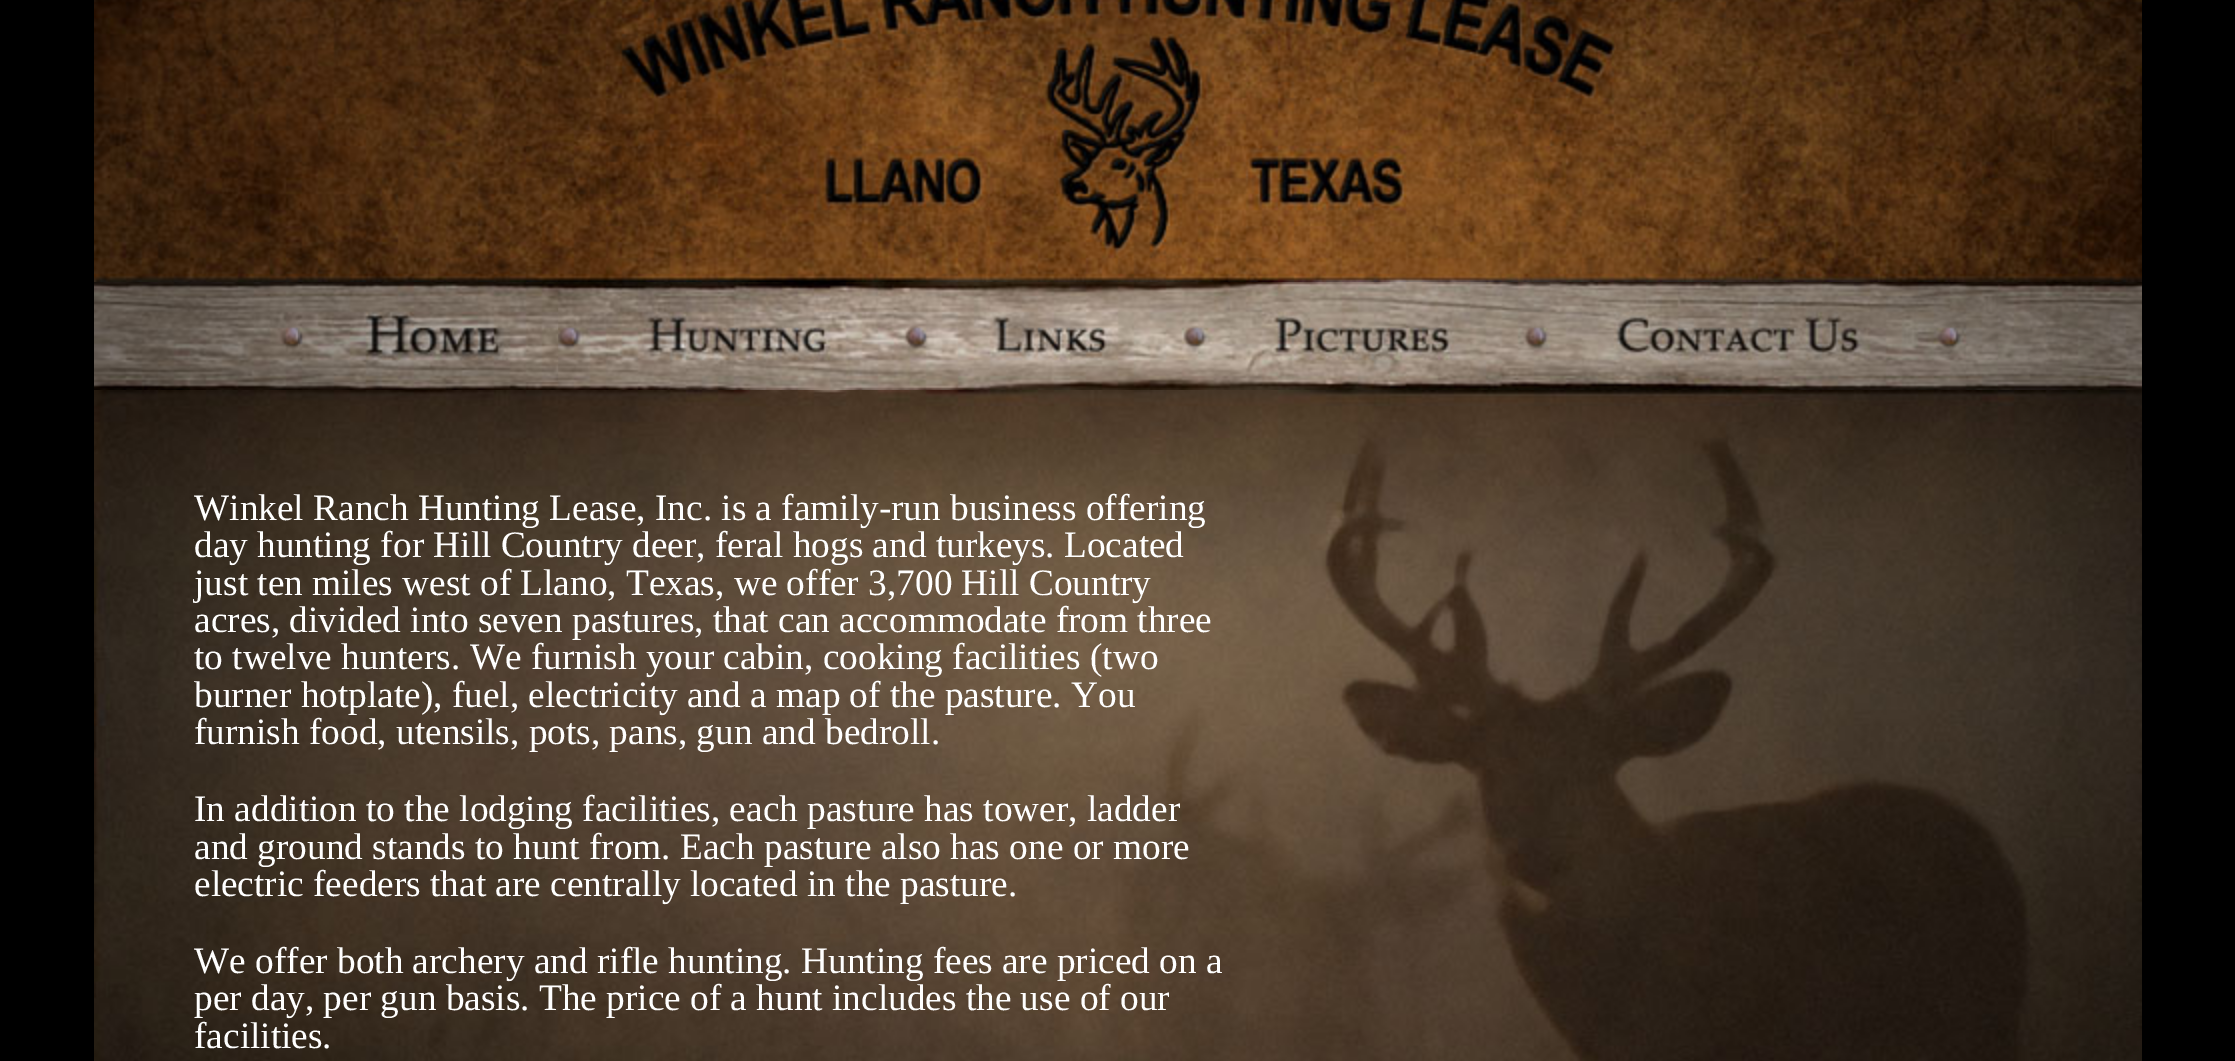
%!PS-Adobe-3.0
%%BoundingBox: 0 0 2235 1061
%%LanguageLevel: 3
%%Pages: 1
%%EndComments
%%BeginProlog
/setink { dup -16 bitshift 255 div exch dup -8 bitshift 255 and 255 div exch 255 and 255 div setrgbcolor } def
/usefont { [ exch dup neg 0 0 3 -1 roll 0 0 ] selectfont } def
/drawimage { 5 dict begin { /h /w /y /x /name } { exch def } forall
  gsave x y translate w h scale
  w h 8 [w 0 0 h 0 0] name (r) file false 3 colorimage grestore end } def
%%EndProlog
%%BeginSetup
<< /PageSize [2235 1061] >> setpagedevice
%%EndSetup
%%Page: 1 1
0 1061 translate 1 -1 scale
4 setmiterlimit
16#000000 setink
0 0 2235 1061 rectfill
(img1.raw) 94 0 2048 282 drawimage
(img2.raw) 94 282 2048 108 drawimage
(img3.raw) 298 308 260 74 drawimage
(img4.raw) 94 390 2048 671 drawimage
/LiberationSerif-Regular 37.3 usefont
16#FFFFFF setink
[
    [(Winkel Ranch Hunting Lease, Inc. is a family-run business offering) 194 520]
    [(day hunting for Hill Country deer, feral hogs and turkeys. Located) 194 557]
    [(just ten miles west of Llano, Texas, we offer 3,700 Hill Country) 194 595]
    [(acres, divided into seven pastures, that can accommodate from three) 194 632]
    [(to twelve hunters. We furnish your cabin, cooking facilities \(two) 194 669]
    [(burner hotplate\), fuel, electricity and a map of the pasture. You) 194 707]
    [(furnish food, utensils, pots, pans, gun and bedroll.) 194 744]
    [(In addition to the lodging facilities, each pasture has tower, ladder) 194 821]
    [(and ground stands to hunt from.) 194 859]
    [(Each pasture also has one or more) 680 859]
    [(electric feeders that are centrally located in the pasture.) 194 896]
    [(We offer both archery and rifle hunting.) 194 973]
    [(Hunting fees are priced on a) 801 973]
    [(per day, per gun basis. The price of a hunt includes the use of our) 194 1010]
    [(facilities.) 194 1048]
] { aload pop moveto show } forall
showpage
%%EOF
